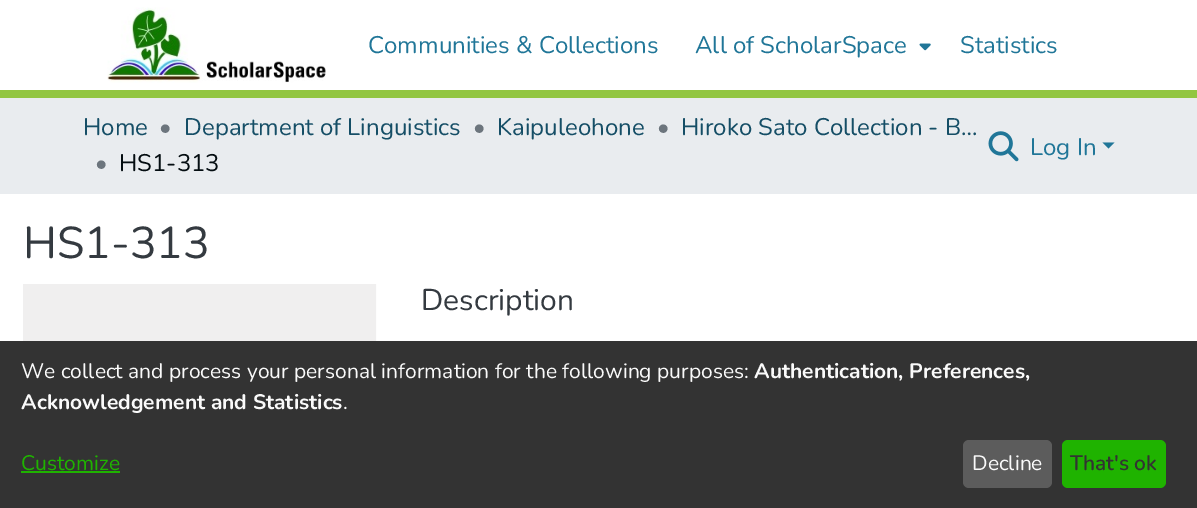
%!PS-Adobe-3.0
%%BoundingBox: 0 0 1197 508
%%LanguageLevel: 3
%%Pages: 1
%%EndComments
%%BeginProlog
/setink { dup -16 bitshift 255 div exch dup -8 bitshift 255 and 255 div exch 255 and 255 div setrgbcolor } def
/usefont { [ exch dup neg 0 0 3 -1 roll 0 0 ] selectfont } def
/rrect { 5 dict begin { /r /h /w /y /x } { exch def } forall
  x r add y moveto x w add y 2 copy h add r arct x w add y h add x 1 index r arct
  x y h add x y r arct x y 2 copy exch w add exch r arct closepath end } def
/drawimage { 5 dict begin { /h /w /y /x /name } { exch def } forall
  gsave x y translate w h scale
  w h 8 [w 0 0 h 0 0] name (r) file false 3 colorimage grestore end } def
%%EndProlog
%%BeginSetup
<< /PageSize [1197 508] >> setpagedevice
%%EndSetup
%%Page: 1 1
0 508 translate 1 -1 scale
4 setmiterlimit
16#FFFFFF setink
0 0 1197 508 rectfill
16#92C642 setink
0 90 1197 8 rectfill
(img1.raw) 107 7 219 76 drawimage
/Nunito-Regular 24 usefont
16#207698 setink
368 53 moveto (Communities & Collections) show
695 53 moveto (All of ScholarSpace) show
(img2.raw) 919 43 12 8 drawimage
960 53 moveto (Statistics) show
16#E9ECEF setink
0 98 1197 96 rectfill
(img3.raw) 988 131 31 31 drawimage
16#207698 setink
1030 155 moveto (Log In) show
1102.5 142.5 moveto 1114.5 142.5 lineto 1108.5 148.5 lineto closepath fill
16#154E66 setink
83 135 moveto (Home) show
16#6C757D setink
159 135 moveto (•) show
16#154E66 setink
184 135 moveto (Department of Linguistics) show
16#6C757D setink
473 135 moveto (•) show
16#154E66 setink
497 135 moveto (Kaipuleohone) show
16#6C757D setink
657 135 moveto (•) show
16#154E66 setink
681 135 moveto (Hiroko Sato Collection - B…) show
16#6C757D setink
95 171 moveto (•) show
16#040D11 setink
119 171 moveto (HS1-313) show
/Nunito-Regular 44.5 usefont
16#343A40 setink
23 258 moveto (HS1-313) show
(img4.raw) 23 284 354 57 drawimage
/Nunito-Regular 30 usefont
421 310 moveto (Description) show
16#333333 setink
0 341 1197 167 rectfill
/Nunito-Regular 21 usefont
16#FAFAFA setink
21 378 moveto (We collect and process your personal information for the following purposes:) show
/Nunito-Bold 21 usefont
754 378 moveto (Authentication, Preferences,) show
21 409 moveto (Acknowledgement and Statistics) show
/Nunito-Regular 21 usefont
343 409 moveto (.) show
16#1FB300 setink
21 470 moveto (Customize) show
21 471 99 2 rectfill
16#5C5C5C setink
963 440 89 48 6 rrect fill
16#FAFAFA setink
972 470 moveto (Decline) show
16#1FB300 setink
1062 440 104 48 6 rrect fill
/Nunito-SemiBold 21 usefont
16#333333 setink
1070 470 moveto (That's ok) show
showpage
%%EOF
